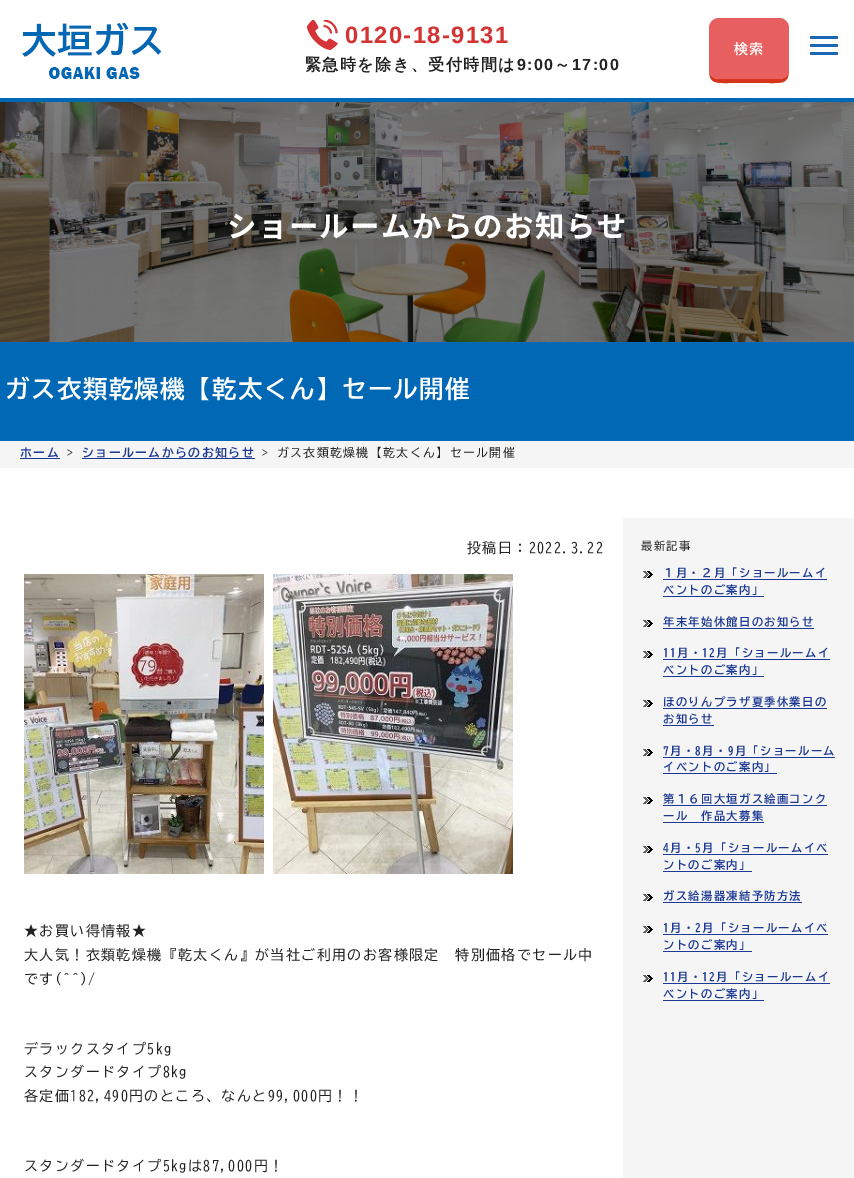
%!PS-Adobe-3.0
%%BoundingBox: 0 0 854 1178
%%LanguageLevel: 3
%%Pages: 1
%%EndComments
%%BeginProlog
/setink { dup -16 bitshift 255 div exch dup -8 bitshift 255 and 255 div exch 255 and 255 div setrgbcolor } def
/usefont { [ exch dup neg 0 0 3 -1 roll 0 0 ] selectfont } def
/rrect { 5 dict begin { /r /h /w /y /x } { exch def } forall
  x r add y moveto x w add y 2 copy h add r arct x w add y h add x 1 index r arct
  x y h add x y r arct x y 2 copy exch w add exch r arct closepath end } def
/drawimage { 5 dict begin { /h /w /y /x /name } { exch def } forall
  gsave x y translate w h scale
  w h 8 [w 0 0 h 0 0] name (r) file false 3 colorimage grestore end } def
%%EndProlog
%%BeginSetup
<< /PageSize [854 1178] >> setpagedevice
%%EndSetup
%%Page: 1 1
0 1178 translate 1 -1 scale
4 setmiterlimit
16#FFFFFF setink
0 0 854 1178 rectfill
16#0168B6 setink
0 98 854 4 rectfill
(img1.raw) 22 22 140 57 drawimage
(img2.raw) 306 18 32 32 drawimage
/LiberationSans-Bold 23.75 usefont
16#D33333 setink
345 43 moveto 1.4 0 (0120-18-9131) ashow
/WenQuanYiZenHei-Bold 16.1 usefont
16#222222 setink
305 70 moveto 1.4 0 (緊急時を除き、受付時間は) ashow
/LiberationSans-Bold 16.1 usefont
517 70 moveto 1.4 0 (9:00) ashow
/WenQuanYiZenHei-Bold 16.1 usefont
554 70 moveto 1.4 0 (～) ashow
/LiberationSans-Bold 16.1 usefont
572 70 moveto 1.4 0 (17:00) ashow
16#D6351A setink
709 69 moveto 709 84 716 83 729 83 curveto 769 83 lineto 782 83 789 84 789 69 curveto 789 75 785 79 779 79 curveto 719 79 lineto 713 79 709 75 709 69 curveto closepath fill
16#E85F5F setink
709 18 80 61 10 rrect fill
/BIZUDGothic-Bold 14 usefont
16#FFFFFF setink
734 54 moveto 1.4 0 (検索) ashow
16#1965B7 setink
810 44 28 3 1.5 rrect fill
810 36 28 3 1.5 rrect fill
810 52 28 3 1.5 rrect fill
(img3.raw) 0 102 854 240 drawimage
/NotoSansJP-Bold 29.4 usefont
16#FFFFFF setink
227 237 moveto 1.4 0 (ショールームからのお知らせ) ashow
16#0168B6 setink
0 342 854 99 rectfill
/BIZUDGothic-Bold 24.5 usefont
16#FFFFFF setink
5 398 moveto 1.4 0 (ガス衣類乾燥機【乾太くん】セール開催) ashow
16#F5F5F6 setink
0 441 854 27 rectfill
/BIZUDGothic-Bold 11.9 usefont
16#1D3994 setink
20 457 moveto 1.4 0 (ホーム) ashow
20 458 40 1 rectfill
/BIZUDGothic-Regular 11.9 usefont
16#222222 setink
67 457 moveto 1.4 0 (>) ashow
16#1D3994 setink
82 458 173 1 rectfill
/BIZUDGothic-Bold 11.9 usefont
82 457 moveto 1.4 0 (ショールームからのお知らせ) ashow
/BIZUDGothic-Regular 11.9 usefont
16#222222 setink
262 457 moveto 1.4 0 (> ガス衣類乾燥機【乾太くん】セール開催) ashow
/BIZUDGothic-Regular 14 usefont
467 553 moveto 1.4 0 (投稿日：2022.3.22) ashow
(img4.raw) 24 574 240 300 drawimage
(img5.raw) 273 574 240 300 drawimage
24 936 moveto 1.4 0 (★お買い得情報★) ashow
24 960 moveto 1.4 0 (大人気！衣類乾燥機『乾太くん』が当社ご利用のお客様限定　特別価格でセール中) ashow
24 984 moveto 1.4 0 (です\(^^\)/) ashow
24 1054 moveto 1.4 0 (デラックスタイプ5kg) ashow
24 1077 moveto 1.4 0 (スタンダードタイプ8kg) ashow
24 1101 moveto 1.4 0 (各定価182,490円のところ、なんと99,000円！！) ashow
24 1171 moveto 1.4 0 (スタンダードタイプ5kgは87,000円！) ashow
16#F5F5F6 setink
623 518 231 660 rectfill
/BIZUDGothic-Regular 11.25 usefont
16#222222 setink
641 550 moveto 1.4 0 (最新記事) ashow
(img6.raw) 643 571 10 7 drawimage
/BIZUDGothic-Bold 11.25 usefont
16#1D3994 setink
663 577 moveto 1.4 0 (１月・２月「ショールームイ) ashow
663 579 164 1 rectfill
663 594 moveto 1.4 0 (ベントのご案内」) ashow
663 596 101 1 rectfill
(img6.raw) 643 620 10 7 drawimage
663 626 moveto 1.4 0 (年末年始休館日のお知らせ) ashow
663 628 151 1 rectfill
(img6.raw) 643 651 10 7 drawimage
663 657 moveto 1.4 0 (11月・12月「ショールームイ) ashow
663 659 167 1 rectfill
663 674 moveto 1.4 0 (ベントのご案内」) ashow
663 676 101 1 rectfill
(img6.raw) 643 700 10 7 drawimage
663 706 moveto 1.4 0 (ほのりんプラザ夏季休業日の) ashow
663 708 164 1 rectfill
663 723 moveto 1.4 0 (お知らせ) ashow
663 725 51 1 rectfill
(img6.raw) 643 749 10 7 drawimage
663 755 moveto 1.4 0 (7月・8月・9月「ショールーム) ashow
663 757 172 1 rectfill
663 771 moveto 1.4 0 (イベントのご案内」) ashow
663 773 114 1 rectfill
(img6.raw) 643 797 10 7 drawimage
663 803 moveto 1.4 0 (第１６回大垣ガス絵画コンク) ashow
663 805 164 1 rectfill
663 820 moveto 1.4 0 (ール　作品大募集) ashow
663 822 101 1 rectfill
(img6.raw) 643 846 10 7 drawimage
663 852 moveto 1.4 0 (4月・5月「ショールームイベ) ashow
663 854 165 1 rectfill
663 869 moveto 1.4 0 (ントのご案内」) ashow
663 871 89 1 rectfill
(img6.raw) 643 894 10 7 drawimage
663 900 moveto 1.4 0 (ガス給湯器凍結予防方法) ashow
663 902 139 1 rectfill
(img6.raw) 643 926 10 7 drawimage
663 932 moveto 1.4 0 (1月・2月「ショールームイベ) ashow
663 934 165 1 rectfill
663 949 moveto 1.4 0 (ントのご案内」) ashow
663 951 89 1 rectfill
(img6.raw) 643 975 10 7 drawimage
663 981 moveto 1.4 0 (11月・12月「ショールームイ) ashow
663 983 167 1 rectfill
663 998 moveto 1.4 0 (ベントのご案内」) ashow
663 1000 101 1 rectfill
showpage
%%EOF
